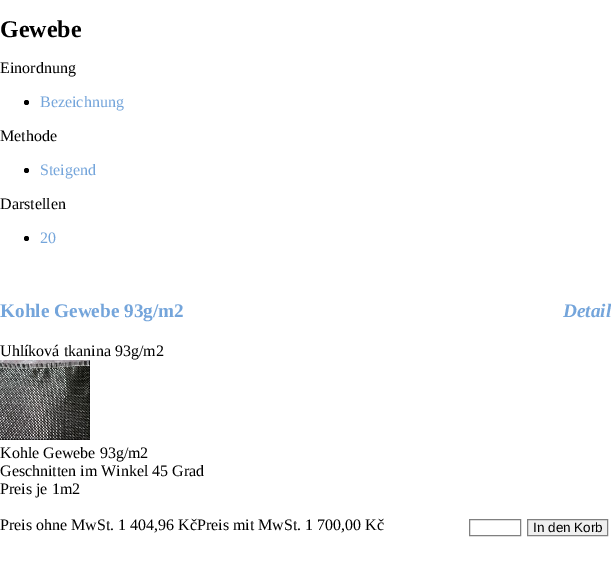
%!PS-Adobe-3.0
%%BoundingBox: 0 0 611 576
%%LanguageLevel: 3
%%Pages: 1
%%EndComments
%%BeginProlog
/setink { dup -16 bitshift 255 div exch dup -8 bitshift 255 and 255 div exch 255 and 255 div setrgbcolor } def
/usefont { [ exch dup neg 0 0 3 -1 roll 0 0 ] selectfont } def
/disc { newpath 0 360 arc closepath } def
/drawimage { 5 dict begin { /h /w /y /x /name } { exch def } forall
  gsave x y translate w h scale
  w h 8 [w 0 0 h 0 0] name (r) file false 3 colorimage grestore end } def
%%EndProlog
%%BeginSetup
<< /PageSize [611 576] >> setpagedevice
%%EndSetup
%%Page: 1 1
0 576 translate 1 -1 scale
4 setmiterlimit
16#FFFFFF setink
0 0 611 576 rectfill
/LiberationSerif-Bold 24 usefont
16#000000 setink
0 37 moveto (Gewebe) show
/LiberationSerif-Regular 16 usefont
0 73 moveto (Einordnung) show
26.5 102.5 2.5 disc fill
16#74A5DB setink
40 107 moveto (Bezeichnung) show
16#000000 setink
0 141 moveto (Methode) show
26.5 170.5 2.5 disc fill
16#74A5DB setink
40 175 moveto (Steigend) show
16#000000 setink
0 209 moveto (Darstellen) show
26.5 238.5 2.5 disc fill
16#74A5DB setink
40 243 moveto (20) show
/LiberationSerif-Bold 19.25 usefont
0 317 moveto (Kohle Gewebe 93g/m2) show
/LiberationSerif-BoldItalic 19.25 usefont
563 317 moveto (Detail) show
/LiberationSerif-Regular 16 usefont
16#000000 setink
0 356 moveto (Uhlíková tkanina 93g/m2) show
(img1.raw) 0 360 90 80 drawimage
[
    [(Kohle Gewebe 93g/m2) 0 458]
    [(Geschnitten im Winkel 45 Grad) 0 476]
    [(Preis je 1m2) 0 494]
    [(Preis ohne MwSt. 1 404,96 KčPreis mit MwSt. 1 700,00 Kč) 0 530]
] { aload pop moveto show } forall
16#808080 setink
469.5 519.5 51 16 rectstroke
16#EFEFEF setink
527.5 519.5 moveto 607.5 519.5 lineto 607.5 535.5 lineto 527.5 535.5 lineto closepath gsave fill grestore
16#808080 setink
stroke
/LiberationSans-Regular 13.5 usefont
16#000000 setink
533 532 moveto (In den Korb) show
showpage
%%EOF
